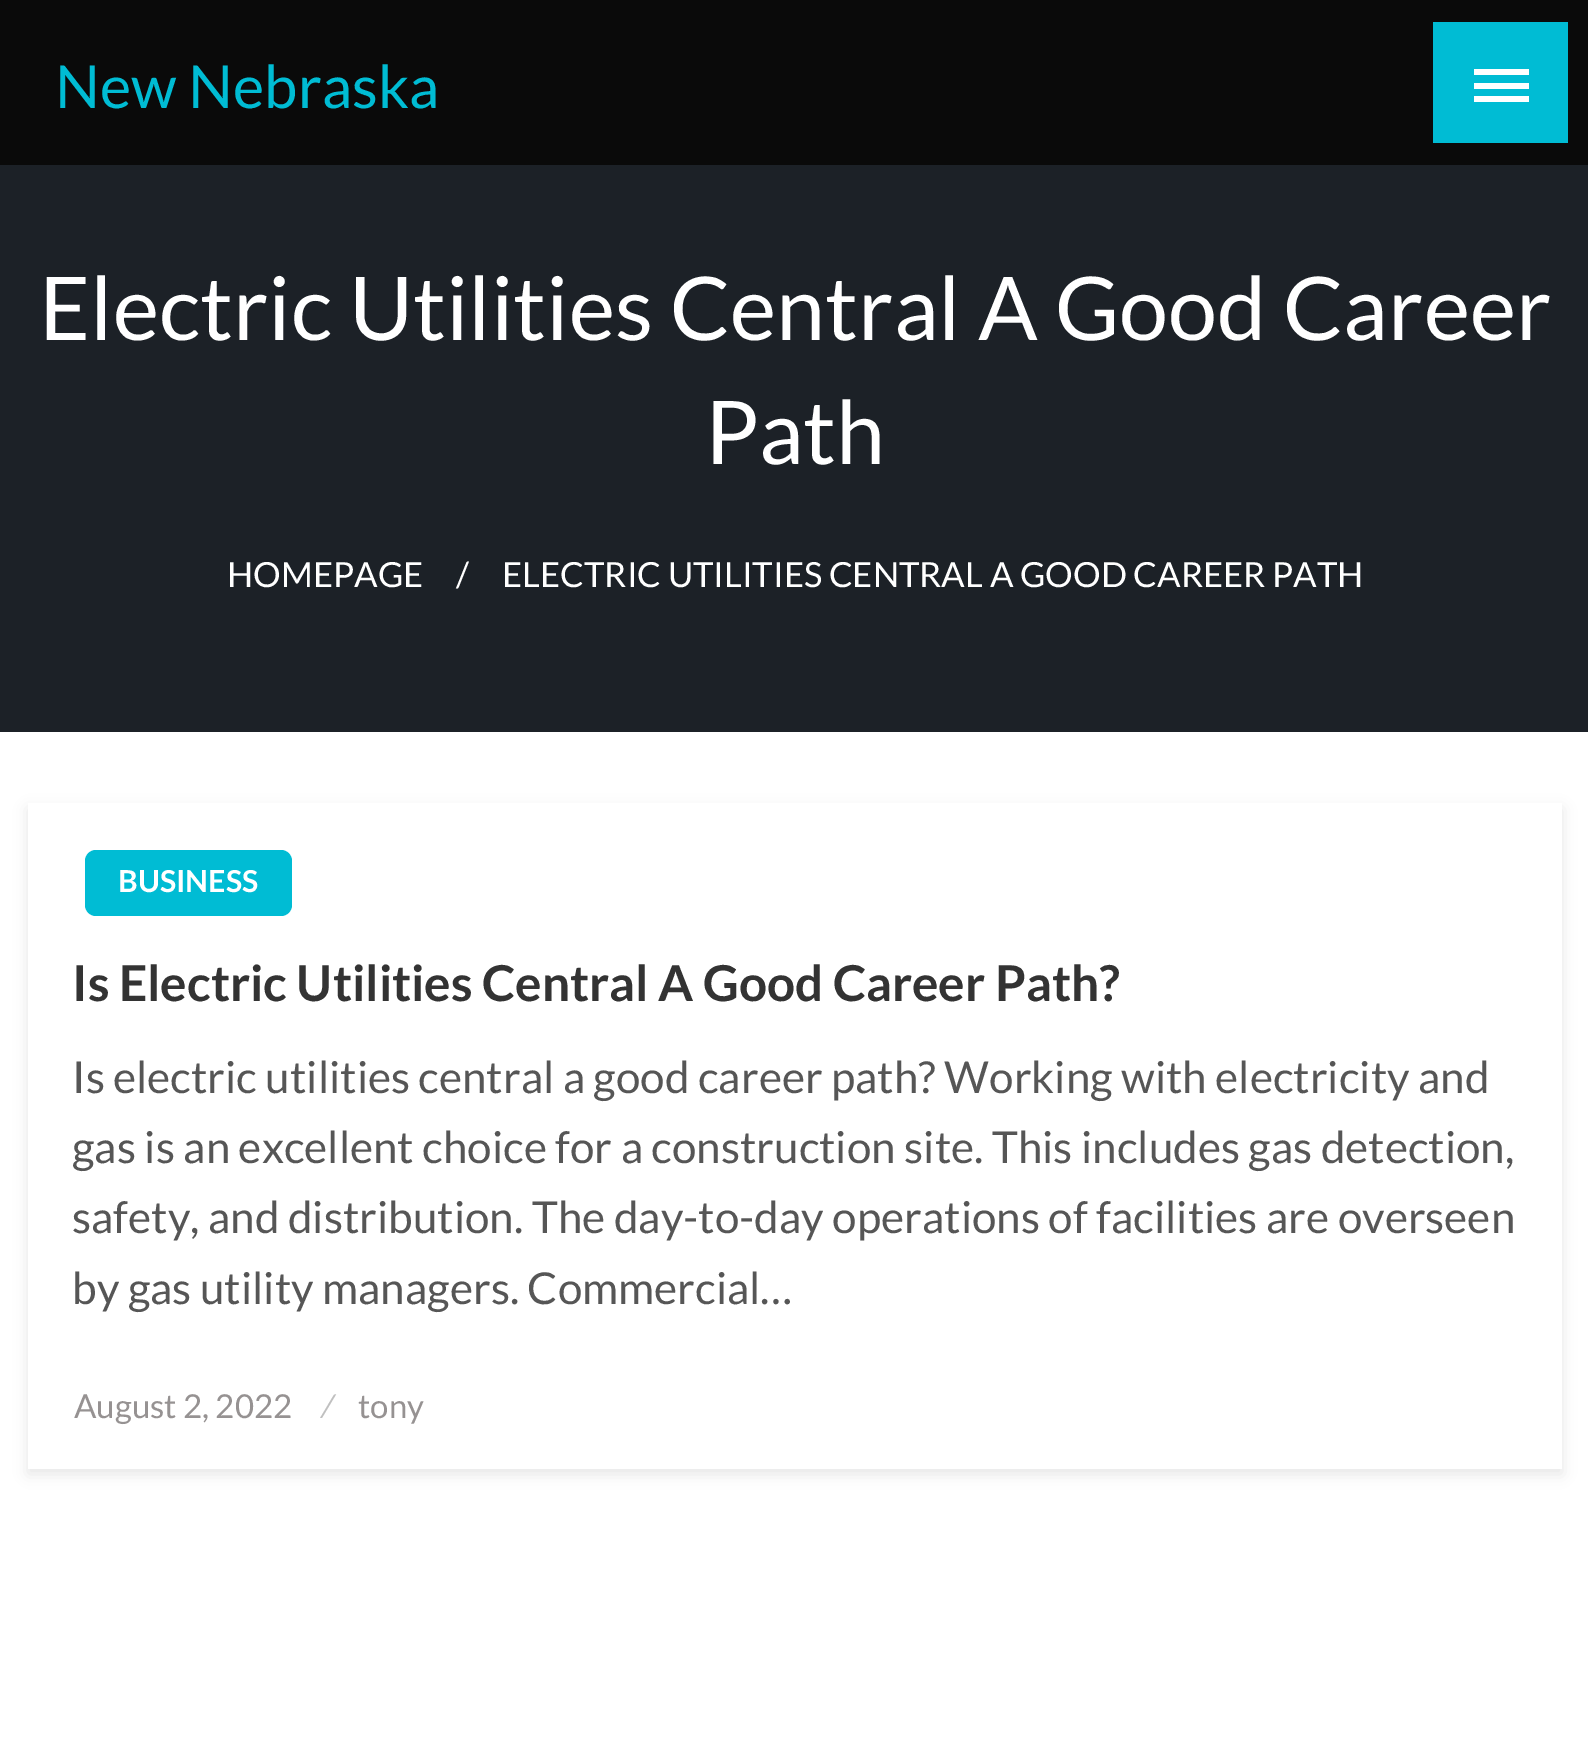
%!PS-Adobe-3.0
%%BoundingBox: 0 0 1588 1740
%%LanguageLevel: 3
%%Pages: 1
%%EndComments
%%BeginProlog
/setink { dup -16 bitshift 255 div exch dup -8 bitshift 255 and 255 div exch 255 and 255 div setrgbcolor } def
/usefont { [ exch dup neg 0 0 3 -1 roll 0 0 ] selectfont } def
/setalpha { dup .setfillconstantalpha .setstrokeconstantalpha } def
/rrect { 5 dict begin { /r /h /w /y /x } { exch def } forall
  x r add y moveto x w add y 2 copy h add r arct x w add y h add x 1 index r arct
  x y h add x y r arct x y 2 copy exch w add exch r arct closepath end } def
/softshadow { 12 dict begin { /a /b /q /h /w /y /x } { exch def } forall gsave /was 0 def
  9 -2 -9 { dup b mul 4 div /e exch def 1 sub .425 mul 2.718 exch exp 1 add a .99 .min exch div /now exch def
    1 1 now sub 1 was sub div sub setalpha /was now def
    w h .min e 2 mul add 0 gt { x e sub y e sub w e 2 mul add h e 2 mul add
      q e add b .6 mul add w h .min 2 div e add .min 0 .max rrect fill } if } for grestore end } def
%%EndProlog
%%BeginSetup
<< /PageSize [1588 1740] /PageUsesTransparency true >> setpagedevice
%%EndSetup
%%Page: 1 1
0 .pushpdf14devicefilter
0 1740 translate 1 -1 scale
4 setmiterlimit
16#0A0A0A setink
0 0 1588 1740 rectfill
/Lato-Regular 59.5 usefont
16#00BCD4 setink
55 108 moveto (New Nebraska) show
[
    [1433 22 135 121 16#00BCD4]
    [1474 69 55 6 16#FFFFFF]
    [1474 83 55 6 16#FFFFFF]
    [1474 96 55 6 16#FFFFFF]
    [0 732 1588 1008 16#FFFFFF]
    [0 165 1588 567 16#1C2127]
] { aload pop setink rectfill } forall
/Lato-Regular 88 usefont
16#FFFFFF setink
39 340 moveto (Electric Utilities Central A Good Career) show
705 464 moveto (Path) show
/Lato-Regular 34.65 usefont
[
    [(HOMEPAGE) 227 587]
    [(/) 456 587]
    [(ELECTRIC UTILITIES CENTRAL A GOOD CAREER PATH) 502 587]
] { aload pop moveto show } forall
16#000000 setink
28 809 1534 665 0 7 0.1 softshadow
16#FFFFFF setink
28 803 1534 666 rectfill
16#00BCD4 setink
85 850 207 66 11 rrect fill
/Lato-Bold 30.25 usefont
16#FFFFFF setink
118 892 moveto (BUSINESS) show
/Lato-Bold 49.5 usefont
16#333333 setink
72 1001 moveto (Is Electric Utilities Central A Good Career Path?) show
/Lato-Regular 44 usefont
16#565656 setink
[
    [(Is electric utilities central a good career path? Working with electricity and) 72 1093]
    [(gas is an excellent choice for a construction site. This includes gas detection,) 72 1163]
    [(safety, and distribution. The day-to-day operations of facilities are overseen) 72 1233]
    [(by gas utility managers. Commercial…) 72 1304]
] { aload pop moveto show } forall
/Lato-Regular 33 usefont
16#969292 setink
74 1418 moveto (August 2, 2022) show
16#C0C0C0 setink
323 1418 moveto (⁄) show
16#969292 setink
358 1418 moveto (tony) show
.poppdf14devicefilter showpage
%%EOF
